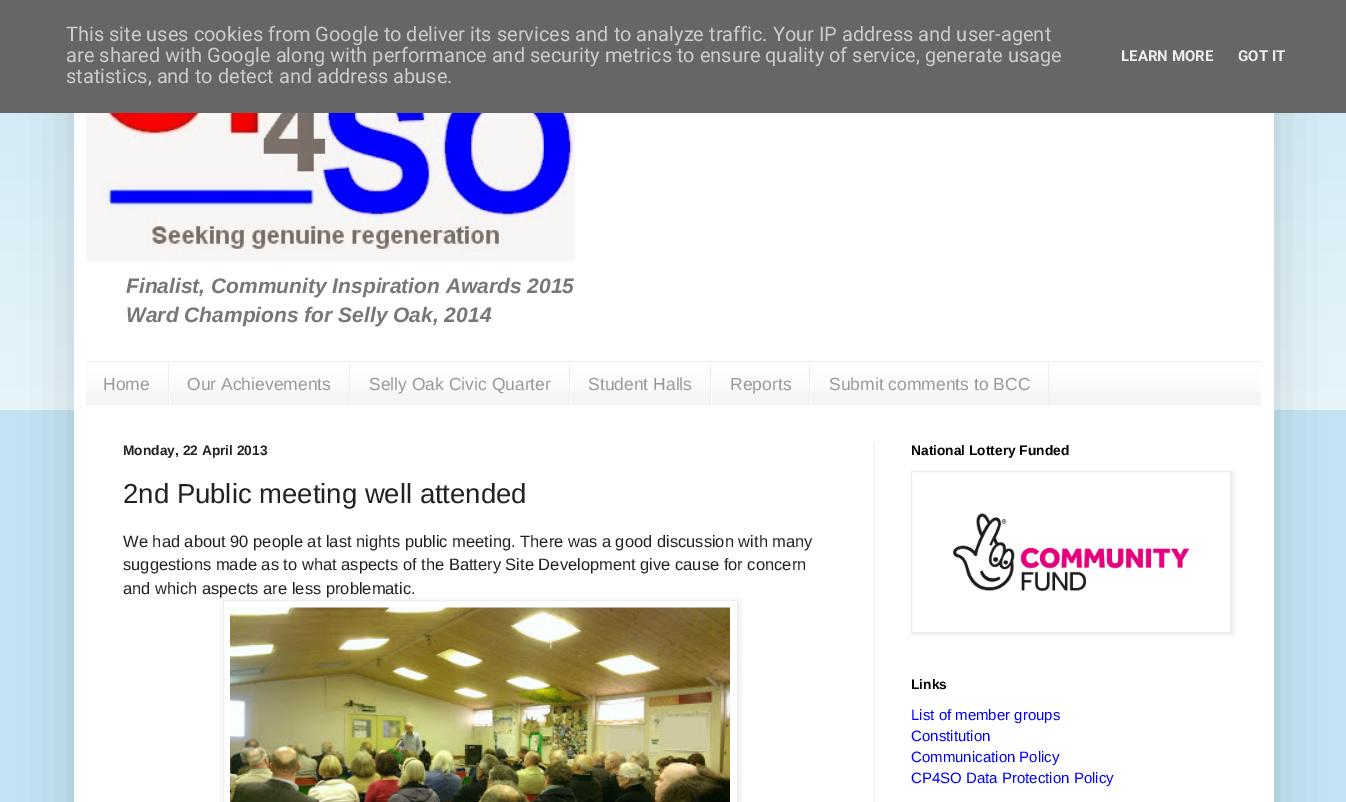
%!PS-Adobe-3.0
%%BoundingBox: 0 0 1346 802
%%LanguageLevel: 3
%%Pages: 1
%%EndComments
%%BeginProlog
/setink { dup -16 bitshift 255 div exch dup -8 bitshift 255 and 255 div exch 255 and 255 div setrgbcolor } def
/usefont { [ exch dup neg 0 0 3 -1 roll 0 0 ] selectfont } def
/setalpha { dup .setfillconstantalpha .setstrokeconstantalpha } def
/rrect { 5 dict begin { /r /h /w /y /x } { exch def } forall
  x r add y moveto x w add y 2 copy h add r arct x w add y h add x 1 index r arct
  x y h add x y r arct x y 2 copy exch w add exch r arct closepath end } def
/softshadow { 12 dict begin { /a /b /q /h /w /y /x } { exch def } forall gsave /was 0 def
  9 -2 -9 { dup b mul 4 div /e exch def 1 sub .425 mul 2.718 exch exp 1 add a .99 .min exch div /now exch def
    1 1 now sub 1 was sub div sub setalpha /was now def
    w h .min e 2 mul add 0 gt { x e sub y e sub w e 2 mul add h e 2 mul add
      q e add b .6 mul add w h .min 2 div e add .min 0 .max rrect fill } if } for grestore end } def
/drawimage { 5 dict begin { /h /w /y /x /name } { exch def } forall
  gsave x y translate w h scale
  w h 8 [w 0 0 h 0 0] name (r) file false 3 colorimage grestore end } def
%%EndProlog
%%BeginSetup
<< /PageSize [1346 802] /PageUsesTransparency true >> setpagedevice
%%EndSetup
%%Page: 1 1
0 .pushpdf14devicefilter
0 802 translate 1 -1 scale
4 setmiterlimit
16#C2E4F2 setink
0 0 1346 802 rectfill
(img1.raw) 0 113 1346 297 drawimage
16#000000 setink
74 -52 1200 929 0 25 0.15 softshadow
16#666666 setink
0 0 1346 113 rectfill
/Roboto-Regular 20 usefont
16#CCCCCC setink
[
    [(This site uses cookies from Google to deliver its services and to analyze traffic. Your IP address and user-agent) 66 41]
    [(are shared with Google along with performance and security metrics to ensure quality of service, generate usage) 66 62]
    [(statistics, and to detect and address abuse.) 66 83]
] { aload pop moveto show } forall
/Roboto-Bold 15 usefont
16#EEEEEE setink
1121 61 moveto (LEARN MORE) show
1238 61 moveto (GOT IT) show
16#FFFFFF setink
74 113 1200 689 rectfill
(img2.raw) 86 113 489 148 drawimage
/LiberationSans-BoldItalic 21 usefont
16#777777 setink
126 293 moveto (Finalist, Community Inspiration Awards 2015) show
126 322 moveto (Ward Champions for Selly Oak, 2014) show
16#F5F5F5 setink
86 363 1175 41 rectfill
(img3.raw) 86 363 1175 29 drawimage
[
    [86 361 1175 1 16#EEEEEE]
    [86 404 1175 1 16#EEEEEE]
    [168 363 1 41 16#EEEEEE]
] { aload pop setink rectfill } forall
/LiberationSans-Regular 17.5 usefont
16#999999 setink
103 390 moveto (Home) show
16#EEEEEE setink
349 363 1 41 rectfill
16#FFFFFF setink
169 376 1 28 rectfill
16#999999 setink
187 390 moveto (Our Achievements) show
16#EEEEEE setink
569 363 1 41 rectfill
16#FFFFFF setink
350 376 1 28 rectfill
16#999999 setink
369 390 moveto (Selly Oak Civic Quarter) show
16#EEEEEE setink
710 363 1 41 rectfill
16#FFFFFF setink
570 376 1 28 rectfill
16#999999 setink
588 390 moveto (Student Halls) show
16#EEEEEE setink
809 363 1 41 rectfill
16#FFFFFF setink
711 376 1 28 rectfill
16#999999 setink
730 390 moveto (Reports) show
16#EEEEEE setink
1048 363 1 41 rectfill
16#FFFFFF setink
810 376 1 28 rectfill
16#999999 setink
829 390 moveto (Submit comments to BCC) show
16#EEEEEE setink
874 443 1 359 rectfill
/LiberationSans-Bold 13.75 usefont
16#222222 setink
123 455 moveto (Monday, 22 April 2013) show
/LiberationSans-Regular 27.5 usefont
123 503 moveto (2nd Public meeting well attended) show
/LiberationSans-Regular 16.5 usefont
[
    [(We had about 90 people at last nights public meeting. There was a good discussion with many) 123 547]
    [(suggestions made as to what aspects of the Battery Site Development give cause for concern) 123 570]
    [(and which aspects are less problematic.) 123 594]
] { aload pop moveto show } forall
16#000000 setink
224 601 515 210 0 3 0.1 softshadow
16#FFFFFF setink
223.5 600.5 moveto 737.5 600.5 lineto 737.5 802.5 lineto 223.5 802.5 lineto closepath gsave fill grestore
16#EEEEEE setink
stroke
(img4.raw) 230 607 500 195 drawimage
/LiberationSans-Bold 13.75 usefont
16#000000 setink
911 455 moveto (National Lottery Funded) show
913 473 320 161 0 3 0.1 softshadow
16#FFFFFF setink
911.5 471.5 moveto 1230.5 471.5 lineto 1230.5 632.5 lineto 911.5 632.5 lineto closepath gsave fill grestore
16#EEEEEE setink
stroke
(img5.raw) 952 513 238 78 drawimage
16#000000 setink
911 689 moveto (Links) show
/LiberationSans-Regular 15 usefont
16#0000FF setink
[
    [(List of member groups) 911 720]
    [(Constitution) 911 741]
    [(Communication Policy) 911 762]
    [(CP4SO Data Protection Policy) 911 783]
] { aload pop moveto show } forall
.poppdf14devicefilter showpage
%%EOF
